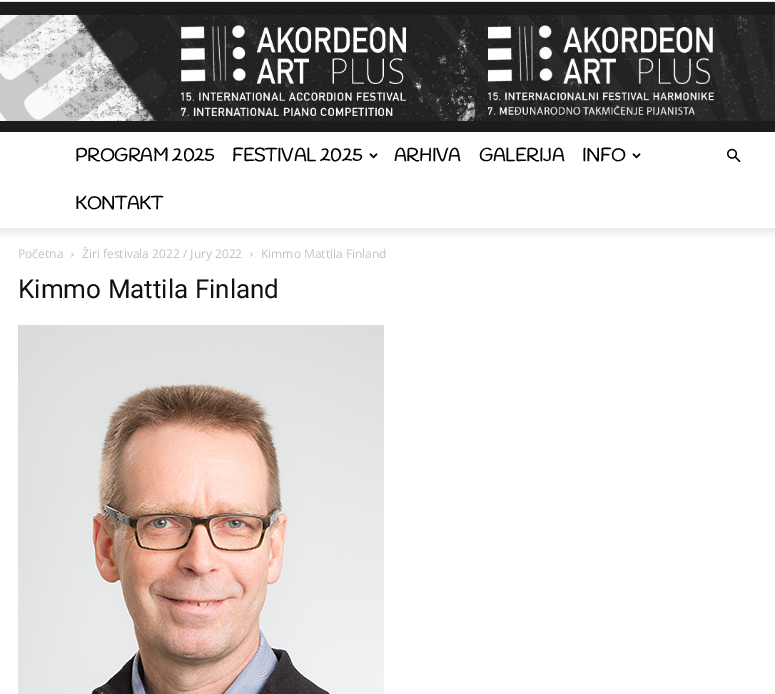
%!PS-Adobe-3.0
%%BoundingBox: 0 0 775 694
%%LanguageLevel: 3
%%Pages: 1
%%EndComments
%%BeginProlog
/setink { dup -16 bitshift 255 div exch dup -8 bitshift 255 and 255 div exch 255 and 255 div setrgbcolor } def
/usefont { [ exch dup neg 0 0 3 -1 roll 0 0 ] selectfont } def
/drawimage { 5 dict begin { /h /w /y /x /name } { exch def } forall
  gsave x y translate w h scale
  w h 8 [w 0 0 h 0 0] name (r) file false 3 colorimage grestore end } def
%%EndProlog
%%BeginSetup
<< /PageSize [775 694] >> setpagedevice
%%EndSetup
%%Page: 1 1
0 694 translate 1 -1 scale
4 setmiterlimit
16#FFFFFF setink
0 0 775 694 rectfill
16#E0E0E0 setink
0 1 775 1 rectfill
16#1C1C1C setink
0 2 775 130 rectfill
(img1.raw) 0 15 775 106 drawimage
/Handlee-Bold 18 usefont
16#000000 setink
75 161 moveto (PROGRAM 2025) show
232 161 moveto (FESTIVAL 2025) show
(img2.raw) 369 153 9 6 drawimage
[
    [(ARHIVA) 394 161]
    [(GALERIJA) 479 161]
    [(INFO) 582 161]
] { aload pop moveto show } forall
(img2.raw) 632 153 9 6 drawimage
75 209 moveto (KONTAKT) show
(img3.raw) 727 148 14 15 drawimage
(img4.raw) 0 228 775 9 drawimage
/OpenSans-Regular 12 usefont
16#C3C3C3 setink
18 258 moveto (Početna) show
(img5.raw) 71 252 3 5 drawimage
82 258 moveto (Žiri festivala 2022 / Jury 2022) show
(img5.raw) 250 252 3 5 drawimage
261 258 moveto (Kimmo Mattila Finland) show
/Roboto-Regular 26 usefont
16#111111 setink
18 298 moveto (Kimmo Mattila Finland) show
(img6.raw) 18 325 366 369 drawimage
showpage
%%EOF
